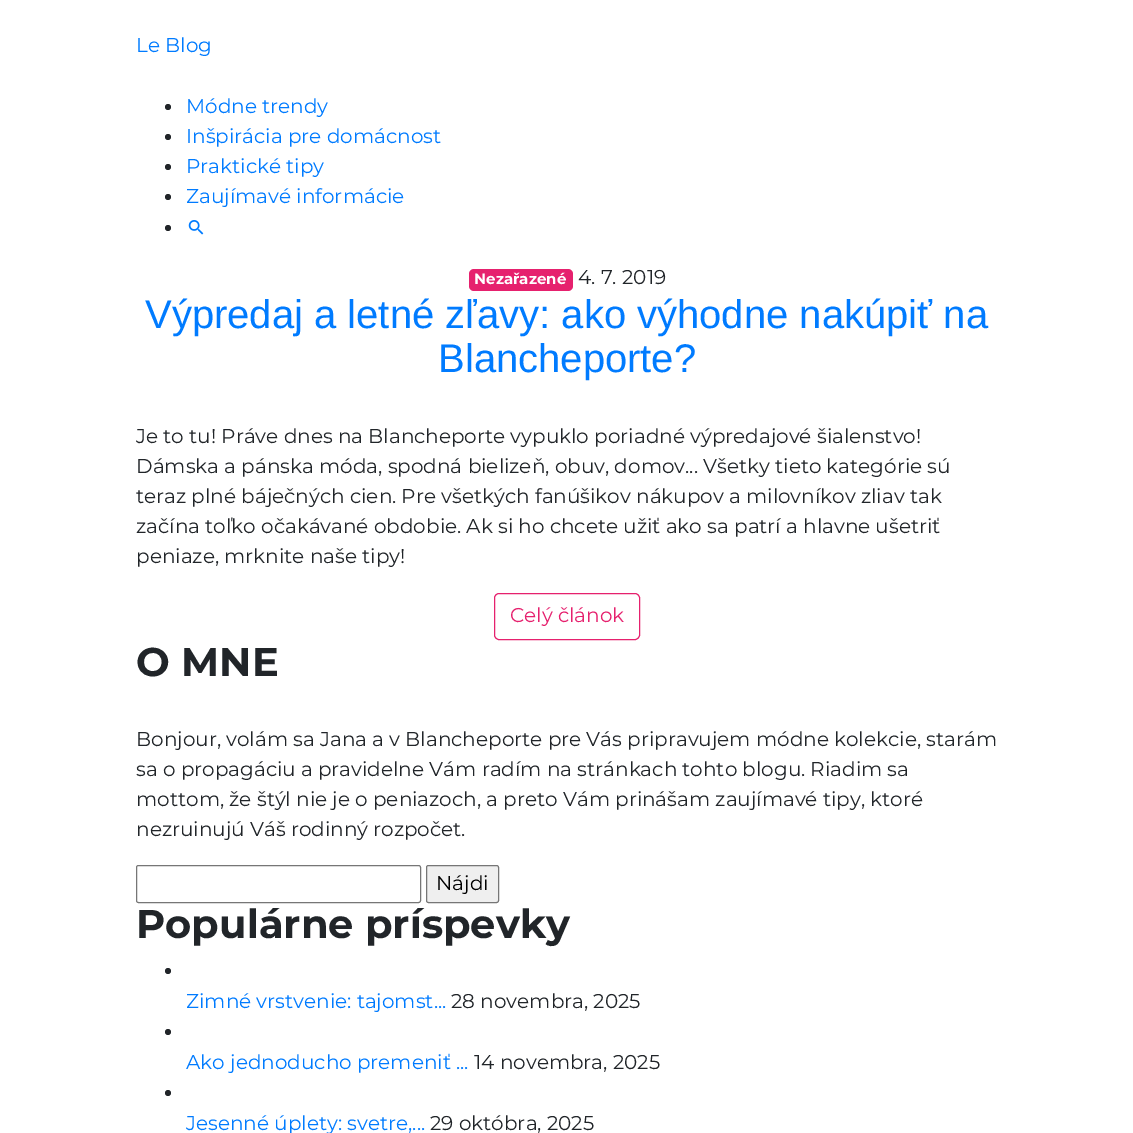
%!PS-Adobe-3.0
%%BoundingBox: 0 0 1133 1133
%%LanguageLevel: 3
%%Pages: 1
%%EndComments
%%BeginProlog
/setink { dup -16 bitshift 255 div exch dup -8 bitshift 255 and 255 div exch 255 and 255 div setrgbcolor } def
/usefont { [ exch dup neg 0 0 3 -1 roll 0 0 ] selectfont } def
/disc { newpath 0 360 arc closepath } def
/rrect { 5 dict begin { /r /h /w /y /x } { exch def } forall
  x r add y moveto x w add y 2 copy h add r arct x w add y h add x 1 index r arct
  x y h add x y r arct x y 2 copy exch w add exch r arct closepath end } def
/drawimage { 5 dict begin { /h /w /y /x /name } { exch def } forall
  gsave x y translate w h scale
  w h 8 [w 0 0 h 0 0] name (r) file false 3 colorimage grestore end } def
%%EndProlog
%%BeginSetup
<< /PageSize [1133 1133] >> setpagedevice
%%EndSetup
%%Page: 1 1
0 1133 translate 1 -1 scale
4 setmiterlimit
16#FFFFFF setink
0 0 1133 1133 rectfill
/Montserrat-Regular 20 usefont
16#007BFF setink
136 52 moveto (Le Blog) show
16#212529 setink
168 107 3 disc fill
16#007BFF setink
186 113 moveto (Módne trendy) show
16#212529 setink
168 137 3 disc fill
16#007BFF setink
186 143 moveto (Inšpirácia pre domácnost) show
16#212529 setink
168 167 3 disc fill
16#007BFF setink
186 173 moveto (Praktické tipy) show
16#212529 setink
168 197 3 disc fill
16#007BFF setink
186 203 moveto (Zaujímavé informácie) show
16#212529 setink
168 228 3 disc fill
(img1.raw) 188 220 16 15 drawimage
16#E6216E setink
469 269 104 22 5 rrect fill
/Montserrat-Bold 15 usefont
16#FFFFFF setink
474 284 moveto (Nezařazené) show
/Montserrat-Regular 20 usefont
16#212529 setink
578 284 moveto (4. 7. 2019) show
/LiberationSans-Regular 40 usefont
16#007BFF setink
145 328 moveto (Výpredaj a letné zľavy: ako výhodne nakúpiť na) show
438 372 moveto (Blancheporte?) show
/Montserrat-Regular 20 usefont
16#212529 setink
[
    [(Je to tu! Práve dnes na Blancheporte vypuklo poriadné výpredajové šialenstvo!) 136 443]
    [(Dámska a pánska móda, spodná bielizeň, obuv, domov... Všetky tieto kategórie sú) 136 473]
    [(teraz plné báječných cien. Pre všetkých fanúšikov nákupov a milovníkov zliav tak) 136 503]
    [(začína toľko očakávané obdobie. Ak si ho chcete užiť ako sa patrí a hlavne ušetriť) 136 533]
    [(peniaze, mrknite naše tipy!) 136 563]
] { aload pop moveto show } forall
16#E6216E setink
494.5 593.5 145 46 4.5 rrect stroke
510 622 moveto (Celý článok) show
/Montserrat-Bold 40 usefont
16#212529 setink
136 676 moveto (O MNE) show
/Montserrat-Regular 20 usefont
[
    [(Bonjour, volám sa Jana a v Blancheporte pre Vás pripravujem módne kolekcie, starám) 136 746]
    [(sa o propagáciu a pravidelne Vám radím na stránkach tohto blogu. Riadim sa) 136 776]
    [(mottom, že štýl nie je o peniazoch, a preto Vám prinášam zaujímavé tipy, ktoré) 136 806]
    [(nezruinujú Váš rodinný rozpočet.) 136 836]
] { aload pop moveto show } forall
16#767676 setink
136.5 865.5 284 37 2 rrect stroke
16#EFEFEF setink
426.5 865.5 72 37 2 rrect gsave fill grestore
16#767676 setink
stroke
16#000000 setink
436 890 moveto (Nájdi) show
/Montserrat-Bold 40 usefont
16#212529 setink
136 938 moveto (Populárne príspevky) show
168 971 3 disc fill
/Montserrat-Regular 20 usefont
16#007BFF setink
186 1008 moveto (Zimné vrstvenie: tajomst...) show
16#212529 setink
451 1008 moveto (28 novembra, 2025) show
168 1032 3 disc fill
16#007BFF setink
186 1069 moveto (Ako jednoducho premeniť ...) show
16#212529 setink
474 1069 moveto (14 novembra, 2025) show
168 1093 3 disc fill
16#007BFF setink
186 1130 moveto (Jesenné úplety: svetre,...) show
16#212529 setink
430 1130 moveto (29 októbra, 2025) show
showpage
%%EOF
